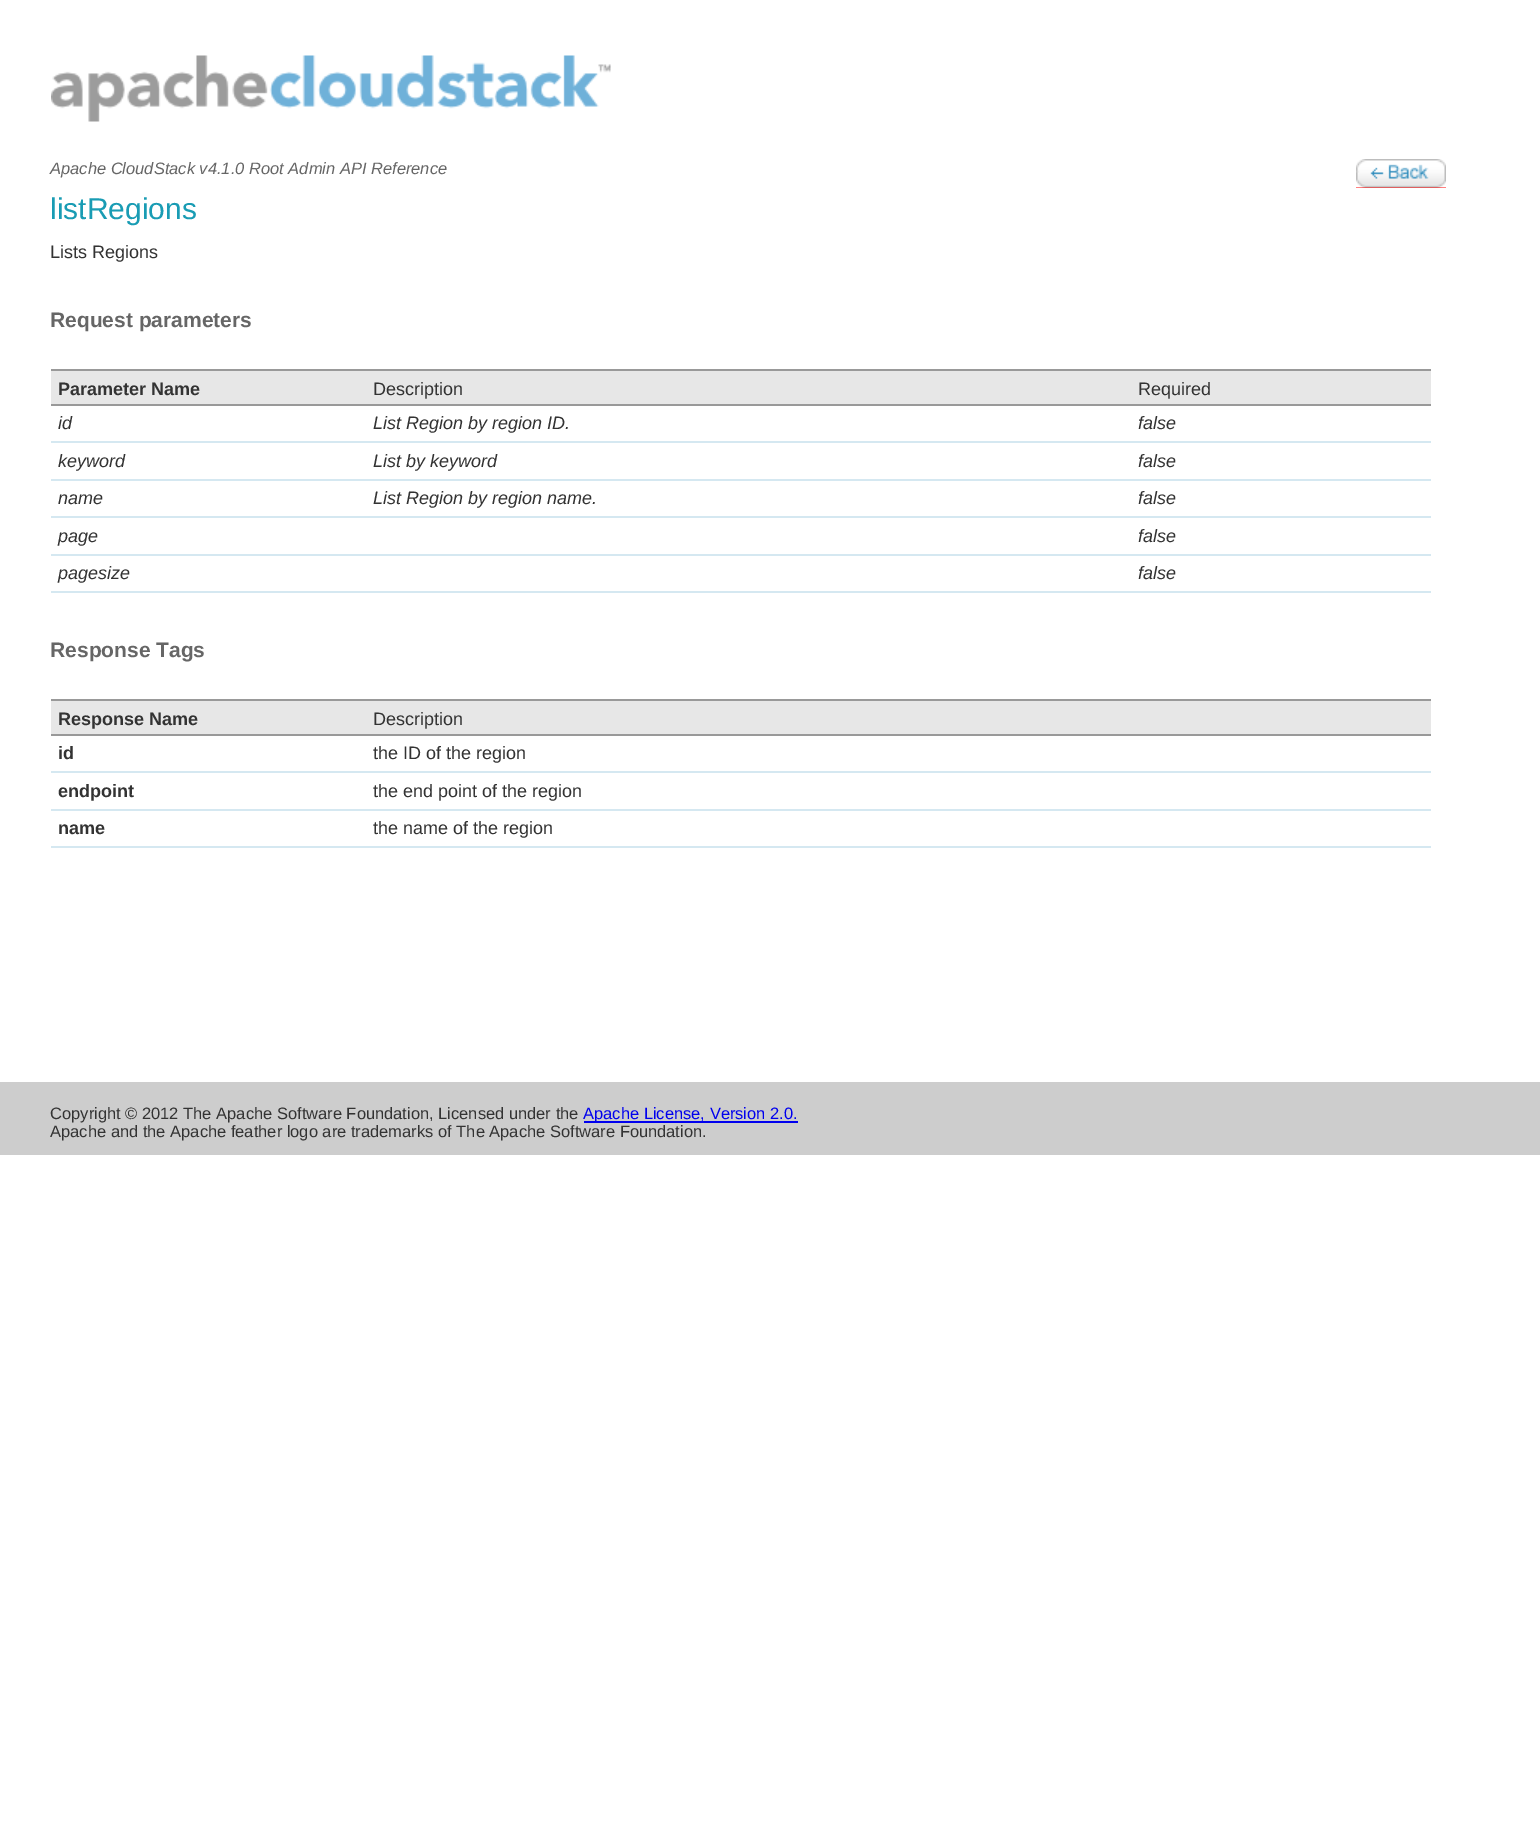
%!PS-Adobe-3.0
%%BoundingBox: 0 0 1540 1847
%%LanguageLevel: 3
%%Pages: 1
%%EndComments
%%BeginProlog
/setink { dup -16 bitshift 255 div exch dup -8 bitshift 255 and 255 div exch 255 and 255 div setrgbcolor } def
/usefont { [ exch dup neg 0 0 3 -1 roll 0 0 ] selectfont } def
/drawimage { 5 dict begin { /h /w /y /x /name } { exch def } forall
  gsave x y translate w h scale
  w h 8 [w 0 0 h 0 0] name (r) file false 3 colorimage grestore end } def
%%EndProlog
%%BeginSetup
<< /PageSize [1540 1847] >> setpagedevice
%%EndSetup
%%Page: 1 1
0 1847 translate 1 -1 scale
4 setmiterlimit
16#FFFFFF setink
0 0 1540 1847 rectfill
(img1.raw) 51 55 560 67 drawimage
/LiberationSans-Italic 16.5 usefont
16#666666 setink
50 174 moveto (Apache CloudStack v4.1.0 Root Admin API Reference) show
/LiberationSans-Regular 30 usefont
16#199CB4 setink
50 219 moveto (listRegions) show
/LiberationSans-Regular 18 usefont
16#333333 setink
50 258 moveto (Lists Regions) show
16#FF0000 setink
1356 187 90 1 rectfill
(img2.raw) 1356 159 90 29 drawimage
/LiberationSans-Bold 21 usefont
16#666666 setink
50 327 moveto (Request parameters) show
[
    [51 371 1380 33 16#E7E7E7]
    [51 369 1380 2 16#999999]
    [51 404 1380 2 16#999999]
] { aload pop setink rectfill } forall
/LiberationSans-Bold 18 usefont
16#333333 setink
58 395 moveto (Parameter Name) show
/LiberationSans-Regular 18 usefont
373 395 moveto (Description) show
1138 395 moveto (Required) show
16#D5E8F1 setink
51 441 1380 2 rectfill
/LiberationSans-Italic 18 usefont
16#333333 setink
[
    [(id) 58 429]
    [(List Region by region ID.) 373 429]
    [(false) 1138 429]
] { aload pop moveto show } forall
16#D5E8F1 setink
51 479 1380 2 rectfill
16#333333 setink
[
    [(keyword) 58 467]
    [(List by keyword) 373 467]
    [(false) 1138 467]
] { aload pop moveto show } forall
16#D5E8F1 setink
51 516 1380 2 rectfill
16#333333 setink
[
    [(name) 58 504]
    [(List Region by region name.) 373 504]
    [(false) 1138 504]
] { aload pop moveto show } forall
16#D5E8F1 setink
51 554 1380 2 rectfill
16#333333 setink
58 542 moveto (page) show
1138 542 moveto (false) show
16#D5E8F1 setink
51 591 1380 2 rectfill
16#333333 setink
58 579 moveto (pagesize) show
1138 579 moveto (false) show
/LiberationSans-Bold 21 usefont
16#666666 setink
50 657 moveto (Response Tags) show
[
    [51 701 1380 33 16#E7E7E7]
    [51 699 1380 2 16#999999]
    [51 734 1380 2 16#999999]
] { aload pop setink rectfill } forall
/LiberationSans-Bold 18 usefont
16#333333 setink
58 725 moveto (Response Name) show
/LiberationSans-Regular 18 usefont
373 725 moveto (Description) show
16#D5E8F1 setink
51 771 1380 2 rectfill
/LiberationSans-Bold 18 usefont
16#333333 setink
58 759 moveto (id) show
/LiberationSans-Regular 18 usefont
373 759 moveto (the ID of the region) show
16#D5E8F1 setink
51 809 1380 2 rectfill
/LiberationSans-Bold 18 usefont
16#333333 setink
58 797 moveto (endpoint) show
/LiberationSans-Regular 18 usefont
373 797 moveto (the end point of the region) show
16#D5E8F1 setink
51 846 1380 2 rectfill
/LiberationSans-Bold 18 usefont
16#333333 setink
58 834 moveto (name) show
/LiberationSans-Regular 18 usefont
373 834 moveto (the name of the region) show
16#CDCDCD setink
0 1082 1540 73 rectfill
/LiberationSans-Regular 16.5 usefont
16#333333 setink
50 1119 moveto (Copyright © 2012 The Apache Software Foundation, Licensed under the) show
16#0000EE setink
584 1121 214 2 rectfill
583 1119 moveto (Apache License, Version 2.0.) show
16#333333 setink
50 1137 moveto (Apache and the Apache feather logo are trademarks of The Apache Software Foundation.) show
showpage
%%EOF
